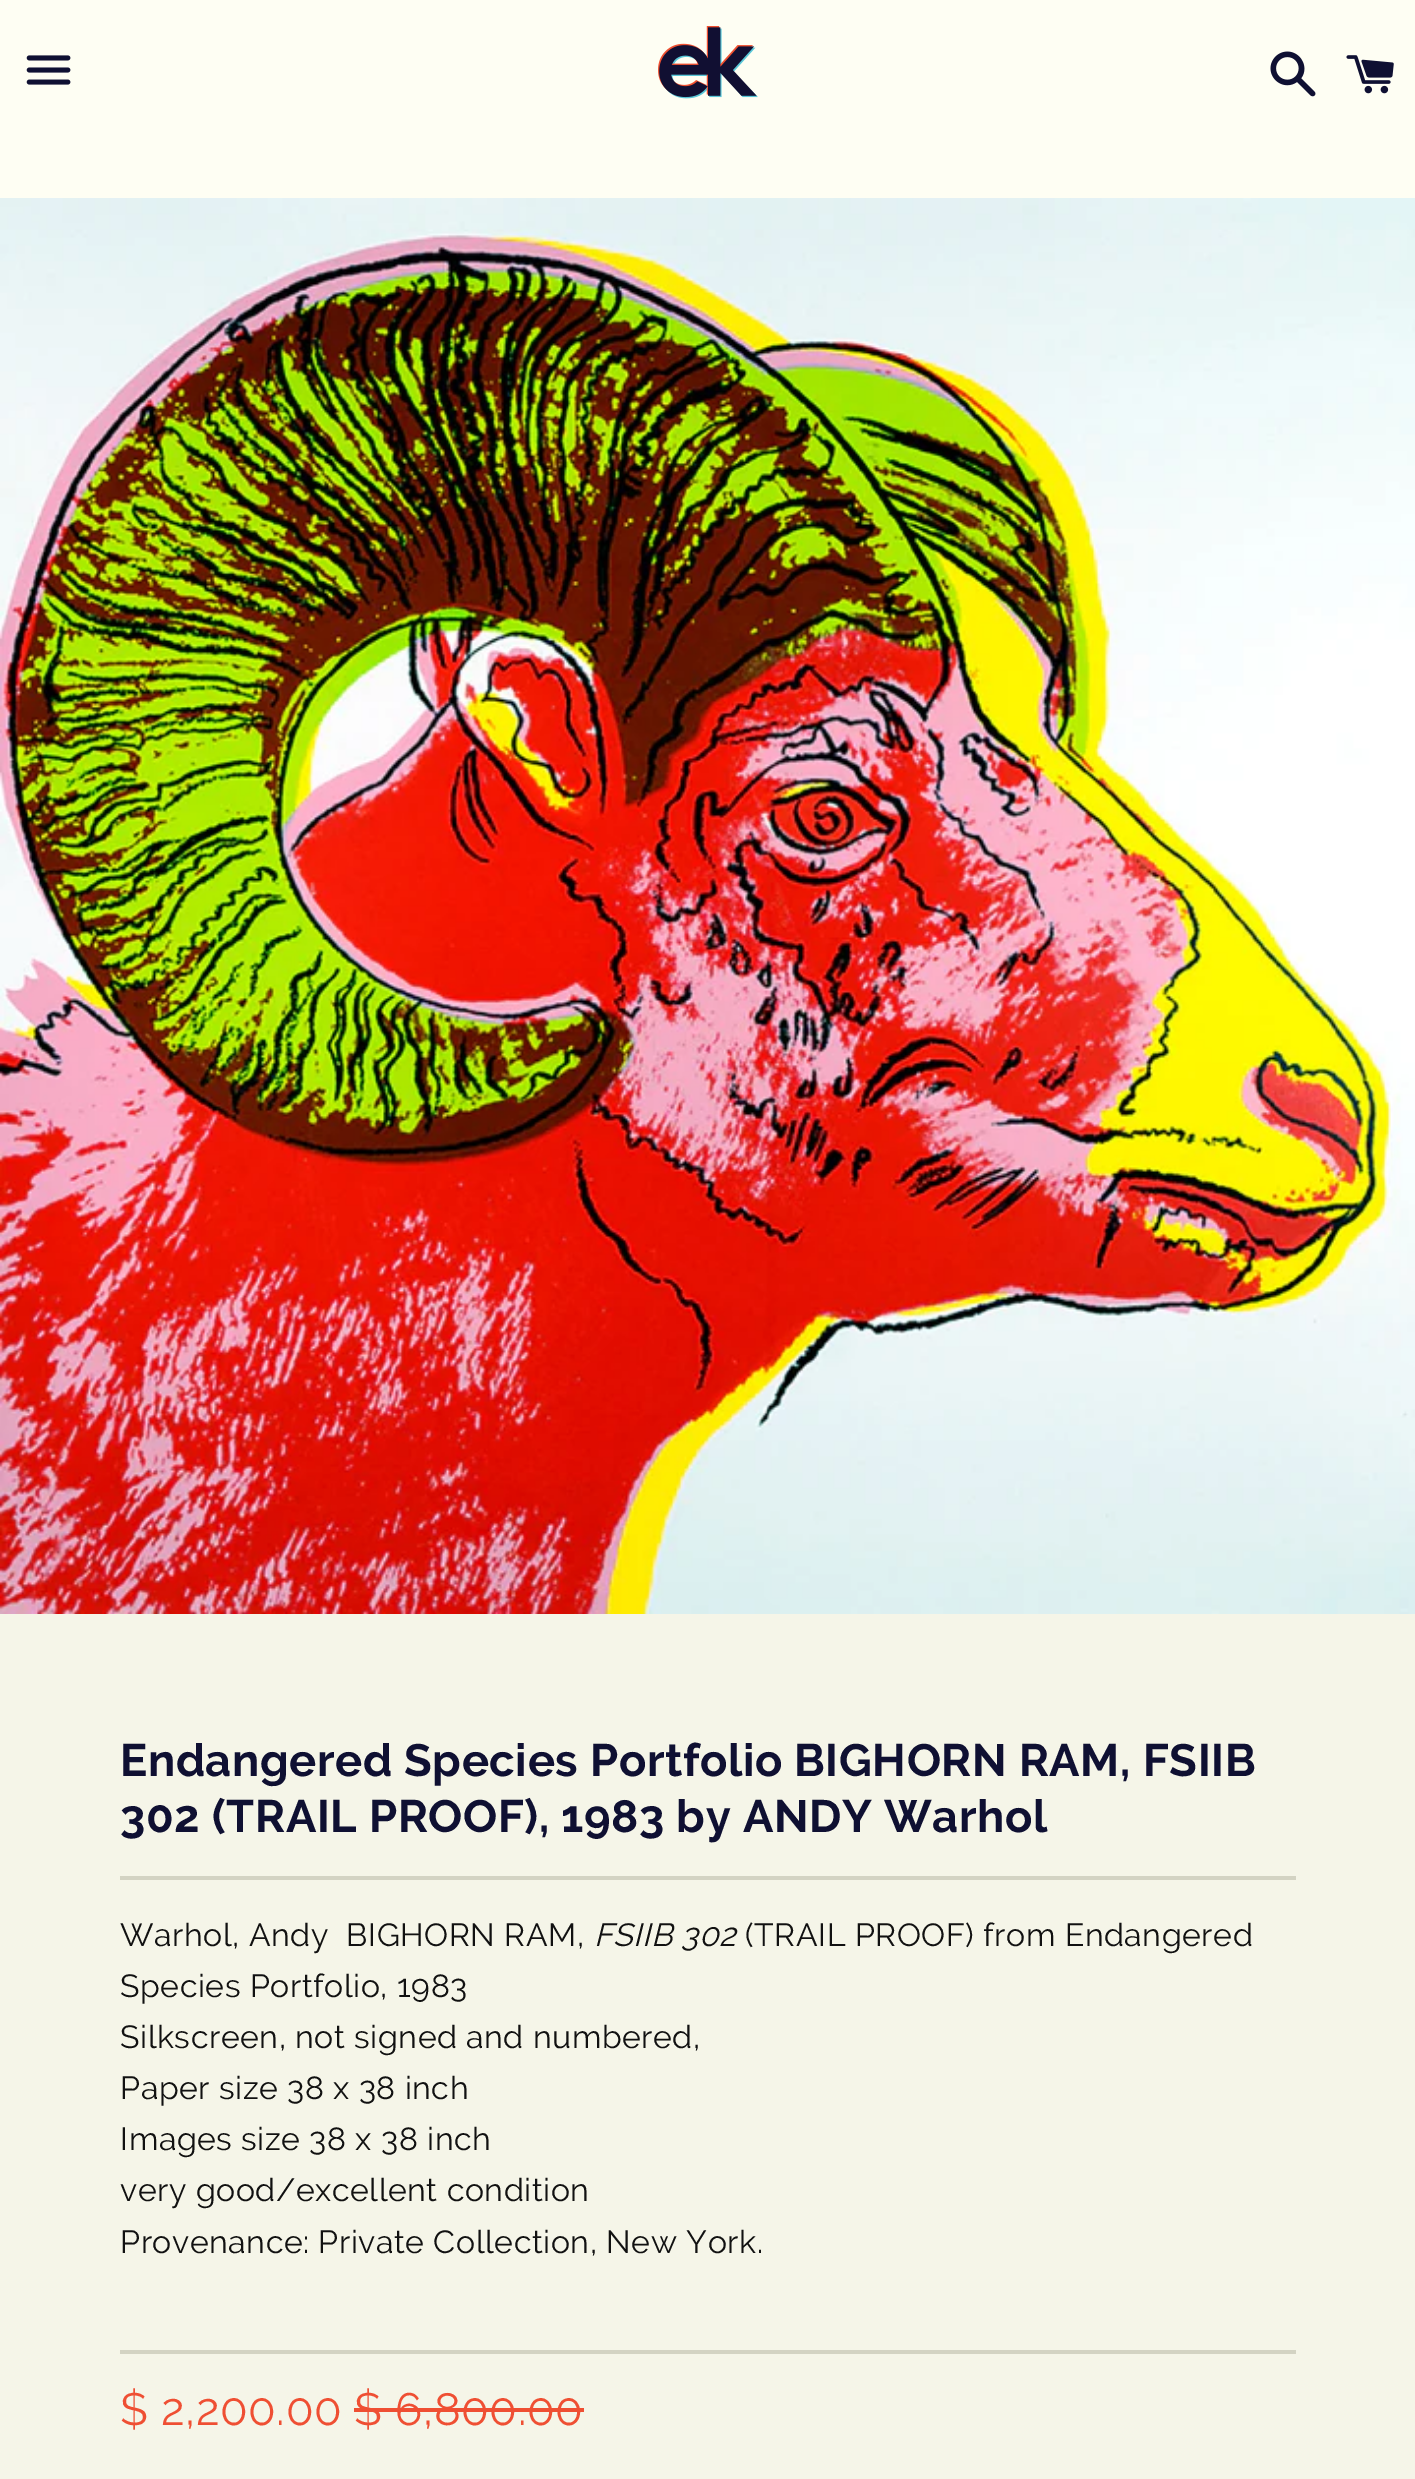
%!PS-Adobe-3.0
%%BoundingBox: 0 0 1415 2479
%%LanguageLevel: 3
%%Pages: 1
%%EndComments
%%BeginProlog
/setink { dup -16 bitshift 255 div exch dup -8 bitshift 255 and 255 div exch 255 and 255 div setrgbcolor } def
/usefont { [ exch dup neg 0 0 3 -1 roll 0 0 ] selectfont } def
/drawimage { 5 dict begin { /h /w /y /x /name } { exch def } forall
  gsave x y translate w h scale
  w h 8 [w 0 0 h 0 0] name (r) file false 3 colorimage grestore end } def
%%EndProlog
%%BeginSetup
<< /PageSize [1415 2479] >> setpagedevice
%%EndSetup
%%Page: 1 1
0 2479 translate 1 -1 scale
4 setmiterlimit
16#FEFEF3 setink
0 0 1415 2479 rectfill
(img1.raw) 26 55 45 30 drawimage
(img2.raw) 658 26 100 73 drawimage
(img3.raw) 1270 51 46 46 drawimage
(img4.raw) 1346 55 48 39 drawimage
(img5.raw) 0 198 1415 1416 drawimage
16#F5F5E8 setink
0 1614 1415 865 rectfill
/Raleway-Bold 45.25 usefont
16#0F1032 setink
120 1776 moveto 0.6 0 (Endangered Species Portfolio) ashow
794 1776 moveto 0.6 0 (BIGHORN RAM, FSIIB) ashow
120 1832 moveto 0.6 0 (302 \(TRAIL PROOF\),) ashow
561 1832 moveto 0.6 0 (1983 by ANDY Warhol) ashow
16#D3D3C3 setink
120 1876 1176 4 rectfill
/Raleway-Regular 32 usefont
16#111111 setink
120 1946 moveto 0.6 0 (Warhol, Andy  BIGHORN RAM,) ashow
/Raleway-Italic 32 usefont
594 1946 moveto 0.6 0 (FSIIB 302) ashow
/Raleway-Regular 32 usefont
745 1946 moveto 0.6 0 (\(TRAIL PROOF\) from Endangered) ashow
120 1997 moveto 0.6 0 (Species Portfolio, 1983) ashow
120 2048 moveto 0.6 0 (Silkscreen, not signed and numbered,) ashow
120 2099 moveto 0.6 0 (Paper size 38 x 38 inch) ashow
120 2150 moveto 0.6 0 (Images size 38 x 38 inch) ashow
120 2201 moveto 0.6 0 (very good/excellent condition) ashow
120 2253 moveto 0.6 0 (Provenance: Private Collection, New York.) ashow
16#D3D3C3 setink
120 2350 1176 4 rectfill
/Raleway-Regular 45.25 usefont
16#EF4F33 setink
120 2425 moveto 0.6 0 ($ 2,200.00 $ 6,800.00) ashow
354 2408 230 4 rectfill
showpage
%%EOF
